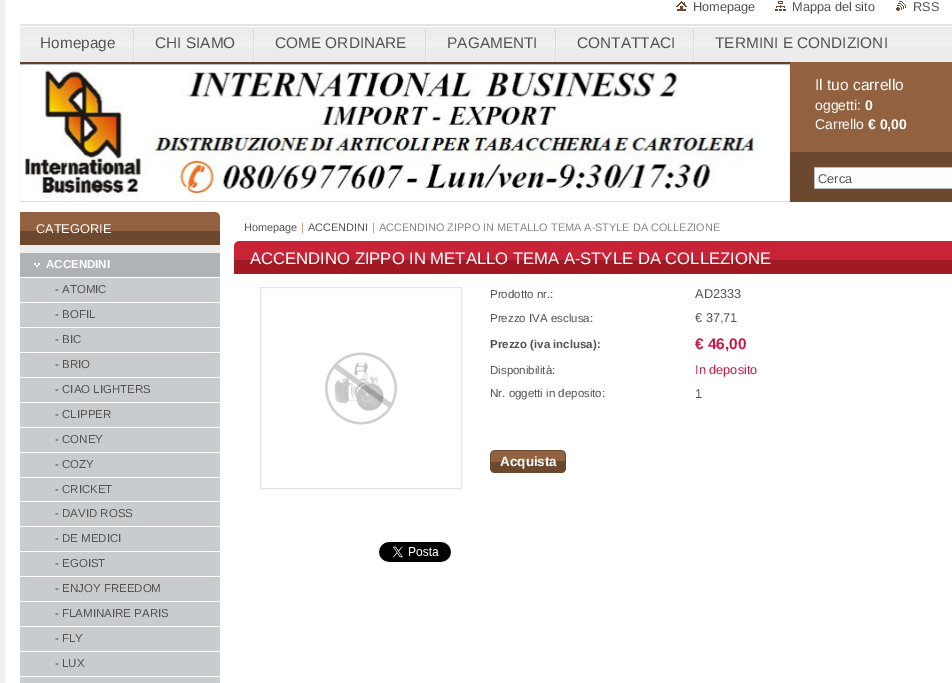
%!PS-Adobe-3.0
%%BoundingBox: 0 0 952 683
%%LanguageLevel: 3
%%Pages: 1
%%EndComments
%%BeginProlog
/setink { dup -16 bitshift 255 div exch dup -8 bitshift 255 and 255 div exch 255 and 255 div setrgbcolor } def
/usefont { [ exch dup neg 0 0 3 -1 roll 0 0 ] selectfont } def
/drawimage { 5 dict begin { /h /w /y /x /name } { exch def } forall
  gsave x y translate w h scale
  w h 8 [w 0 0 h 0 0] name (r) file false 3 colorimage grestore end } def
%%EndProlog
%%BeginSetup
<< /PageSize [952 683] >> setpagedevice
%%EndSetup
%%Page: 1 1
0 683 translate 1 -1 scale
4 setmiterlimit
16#FFFFFF setink
0 0 952 683 rectfill
16#EFEFEF setink
0 0 5 683 rectfill
(img1.raw) 676 1 11 10 drawimage
/LiberationSans-Regular 12.75 usefont
16#535353 setink
693 11 moveto (Homepage) show
(img2.raw) 775 1 11 10 drawimage
792 11 moveto (Mappa del sito) show
(img3.raw) 896 1 10 10 drawimage
913 11 moveto (RSS) show
16#ECECEC setink
20 47 932 15 rectfill
(img4.raw) 20 24 932 23 drawimage
(img5.raw) 133 28 2 34 drawimage
/LiberationSans-Regular 15.4 usefont
16#535353 setink
40 48 moveto (Homepage) show
(img5.raw) 253 28 2 34 drawimage
155 48 moveto (CHI SIAMO) show
(img5.raw) 425 28 2 34 drawimage
275 48 moveto (COME ORDINARE) show
(img5.raw) 555 28 2 34 drawimage
447 48 moveto (PAGAMENTI) show
(img5.raw) 693 28 2 34 drawimage
577 48 moveto (CONTATTACI) show
715 48 moveto (TERMINI E CONDIZIONI) show
16#6C482F setink
20 62 770 2 rectfill
(img6.raw) 20 62 770 140 drawimage
16#92613F setink
790 62 162 90 rectfill
/LiberationSans-Regular 15.5 usefont
16#FFFFFF setink
815 90 moveto (Il tuo carrello) show
/LiberationSans-Regular 14 usefont
815 110 moveto (oggetti:) show
/LiberationSans-Bold 14 usefont
865 110 moveto (0) show
/LiberationSans-Regular 14 usefont
815 129 moveto (Carrello) show
/LiberationSans-Bold 14 usefont
868 129 moveto (€ 0,00) show
(img7.raw) 790 152 162 50 drawimage
/LiberationSans-Regular 12.75 usefont
16#535353 setink
818 183 moveto (Cerca) show
16#EBEDEF setink
20 245 200 8 rectfill
16#6C482F setink
20 232 200 13 rectfill
(img8.raw) 20 212 200 20 drawimage
16#FFFFFF setink
36 233 moveto (CATEGORIE) show
16#B0B3B5 setink
20 253 200 24 rectfill
(img9.raw) 34 263 6 5 drawimage
/LiberationSans-Bold 11.5 usefont
16#FFFFFF setink
46 268 moveto (ACCENDINI) show
16#C9CCCF setink
20 278 200 405 rectfill
16#FFFFFF setink
20 302 200 1 rectfill
/LiberationSans-Regular 11.5 usefont
16#535353 setink
55 293 moveto (- ATOMIC) show
16#FFFFFF setink
20 327 200 1 rectfill
16#535353 setink
55 318 moveto (- BOFIL) show
16#FFFFFF setink
20 352 200 1 rectfill
16#535353 setink
55 343 moveto (- BIC) show
16#FFFFFF setink
20 377 200 1 rectfill
16#535353 setink
55 368 moveto (- BRIO) show
16#FFFFFF setink
20 402 200 1 rectfill
16#535353 setink
55 393 moveto (- CIAO LIGHTERS) show
16#FFFFFF setink
20 427 200 1 rectfill
16#535353 setink
55 418 moveto (- CLIPPER) show
16#FFFFFF setink
20 452 200 1 rectfill
16#535353 setink
55 443 moveto (- CONEY) show
16#FFFFFF setink
20 477 200 1 rectfill
16#535353 setink
55 468 moveto (- COZY) show
16#FFFFFF setink
20 501 200 1 rectfill
16#535353 setink
55 493 moveto (- CRICKET) show
16#FFFFFF setink
20 526 200 1 rectfill
16#535353 setink
55 517 moveto (- DAVID ROSS) show
16#FFFFFF setink
20 551 200 1 rectfill
16#535353 setink
55 542 moveto (- DE MEDICI) show
16#FFFFFF setink
20 576 200 1 rectfill
16#535353 setink
55 567 moveto (- EGOIST) show
16#FFFFFF setink
20 601 200 1 rectfill
16#535353 setink
55 592 moveto (- ENJOY FREEDOM) show
16#FFFFFF setink
20 626 200 1 rectfill
16#535353 setink
55 617 moveto (- FLAMINAIRE PARIS) show
16#FFFFFF setink
20 651 200 1 rectfill
16#535353 setink
55 642 moveto (- FLY) show
16#FFFFFF setink
20 676 200 1 rectfill
16#535353 setink
55 667 moveto (- LUX) show
/LiberationSans-Regular 10.9 usefont
244 231 moveto (Homepage) show
16#B77E56 setink
301 231 moveto (|) show
16#535353 setink
308 231 moveto (ACCENDINI) show
16#B77E56 setink
372 231 moveto (|) show
16#878787 setink
379 231 moveto (ACCENDINO ZIPPO IN METALLO TEMA A-STYLE DA COLLEZIONE) show
(img10.raw) 234 241 718 33 drawimage
/LiberationSans-Regular 16.65 usefont
16#FFFFFF setink
250 264 moveto (ACCENDINO ZIPPO IN METALLO TEMA A-STYLE DA COLLEZIONE) show
16#E2E5E8 setink
260.5 287.5 201 201 rectstroke
(img11.raw) 325 352 72 73 drawimage
/LiberationSans-Regular 11.5 usefont
16#535353 setink
490 298 moveto (Prodotto nr.:) show
/LiberationSans-Regular 12.75 usefont
695 298 moveto (AD2333) show
/LiberationSans-Regular 11.5 usefont
490 322 moveto (Prezzo IVA esclusa:) show
/LiberationSans-Regular 12.75 usefont
695 322 moveto (€ 37,71) show
/LiberationSans-Bold 11.5 usefont
490 348 moveto (Prezzo \(iva inclusa\):) show
/LiberationSans-Bold 15.4 usefont
16#CC1749 setink
695 349 moveto (€ 46,00) show
/LiberationSans-Regular 11.5 usefont
16#535353 setink
490 374 moveto (Disponibilità:) show
/LiberationSans-Regular 12.75 usefont
16#CC1749 setink
695 374 moveto (In deposito) show
/LiberationSans-Regular 11.5 usefont
16#535353 setink
490 397 moveto (Nr. oggetti in deposito:) show
/LiberationSans-Regular 12.75 usefont
695 398 moveto (1) show
(img12.raw) 490 450 71 12 drawimage
(img13.raw) 561 450 5 11 drawimage
(img14.raw) 490 462 57 11 drawimage
(img15.raw) 546 461 20 12 drawimage
/LiberationSans-Bold 13.5 usefont
16#FFFFFF setink
500 466 moveto (Acquista) show
(img16.raw) 379 542 72 20 drawimage
showpage
%%EOF
